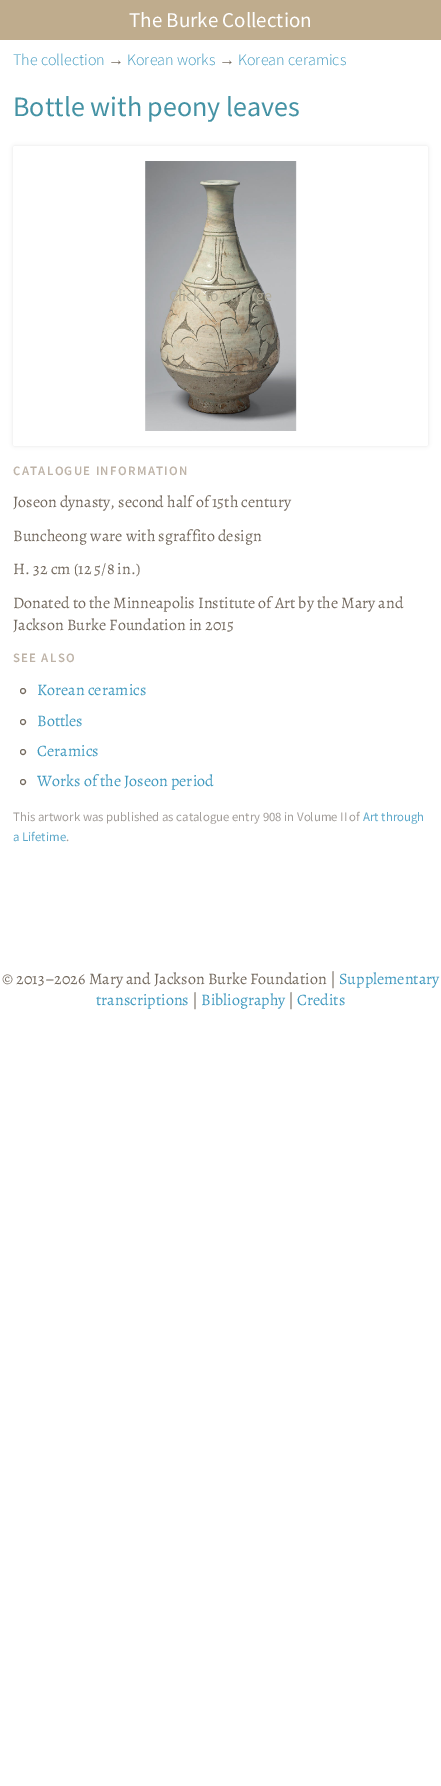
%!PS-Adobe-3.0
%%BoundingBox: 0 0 441 1786
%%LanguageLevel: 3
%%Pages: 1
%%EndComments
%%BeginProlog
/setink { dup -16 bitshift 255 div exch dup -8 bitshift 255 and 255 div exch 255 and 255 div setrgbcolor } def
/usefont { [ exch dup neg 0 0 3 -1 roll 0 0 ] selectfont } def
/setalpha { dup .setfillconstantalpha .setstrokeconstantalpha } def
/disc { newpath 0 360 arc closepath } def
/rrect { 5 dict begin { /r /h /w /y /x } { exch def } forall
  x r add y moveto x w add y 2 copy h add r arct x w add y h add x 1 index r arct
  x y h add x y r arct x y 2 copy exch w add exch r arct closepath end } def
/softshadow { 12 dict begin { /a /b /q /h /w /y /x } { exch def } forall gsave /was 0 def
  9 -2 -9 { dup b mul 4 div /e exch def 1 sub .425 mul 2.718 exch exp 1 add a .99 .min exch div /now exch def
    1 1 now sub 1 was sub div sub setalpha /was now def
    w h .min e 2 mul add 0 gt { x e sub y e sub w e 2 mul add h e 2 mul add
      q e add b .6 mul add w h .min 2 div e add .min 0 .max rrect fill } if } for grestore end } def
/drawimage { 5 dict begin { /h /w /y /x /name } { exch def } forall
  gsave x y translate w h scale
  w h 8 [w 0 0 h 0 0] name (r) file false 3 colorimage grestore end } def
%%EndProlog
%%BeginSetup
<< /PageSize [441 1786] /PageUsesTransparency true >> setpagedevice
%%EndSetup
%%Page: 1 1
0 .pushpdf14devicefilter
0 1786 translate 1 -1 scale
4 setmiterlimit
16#FFFFFF setink
0 0 441 1786 rectfill
16#BFAC8D setink
0 0 441 40 rectfill
/SourceSansPro-Regular 21 usefont
16#FFFFFF setink
129 27 moveto (The Burke Collection) show
/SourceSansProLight-Light 16 usefont
16#4099BF setink
13 65 moveto (The collection) show
/LiberationSans-Regular 16 usefont
16#73695E setink
108 65 moveto (→) show
/SourceSansProLight-Light 16 usefont
16#4099BF setink
127 65 moveto (Korean works) show
/LiberationSans-Regular 16 usefont
16#73695E setink
219 65 moveto (→) show
/SourceSansProLight-Light 16 usefont
16#4099BF setink
238 65 moveto (Korean ceramics) show
/SourceSansPro-Regular 28 usefont
16#4492A4 setink
13 116 moveto (Bottle with peony leaves) show
16#CCCCCC setink
13 146 415 300 2 2 0.6 softshadow
16#FFFFFF setink
13 146 415 300 2 rrect fill
(img1.raw) 145 161 152 270 drawimage
/SourceSansPro-Regular 16 usefont
16#B0AB99 setink
169 301 moveto (Click to enlarge) show
/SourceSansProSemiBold-SemiBold 12.8 usefont
16#BEB3A7 setink
13 475 moveto 1.3 0 (CATALOGUE INFORMATION) ashow
/Alegreya-Regular 16 usefont
16#73695E setink
[
    [(Joseon dynasty, second half of 15th century) 13 507]
    [(Buncheong ware with sgraffito design) 13 541]
    [(H. 32 cm \(12 5/8 in.\)) 13 574]
    [(Donated to the Minneapolis Institute of Art by the Mary and) 13 608]
    [(Jackson Burke Foundation in 2015) 13 630]
] { aload pop moveto show } forall
/SourceSansProSemiBold-SemiBold 12.8 usefont
16#BEB3A7 setink
13 662 moveto 1.3 0 (SEE ALSO) ashow
16#73695E setink
23 691 2.5 disc stroke
/Alegreya-Regular 16 usefont
16#4099BF setink
37 695 moveto (Korean ceramics) show
16#73695E setink
23 722 2.5 disc stroke
16#4099BF setink
37 726 moveto (Bottles) show
16#73695E setink
23 752 2.5 disc stroke
16#4099BF setink
37 756 moveto (Ceramics) show
16#73695E setink
23 782 2.5 disc stroke
16#4099BF setink
37 786 moveto (Works of the Joseon period) show
/SourceSansPro-Regular 12.8 usefont
16#A29D99 setink
13 821 moveto (This artwork was published as catalogue entry 908 in Volume II of) show
16#5DA8C9 setink
363 821 moveto (Art through) show
13 841 moveto (a Lifetime) show
16#A29D99 setink
66 841 moveto (.) show
/Alegreya-Regular 16 usefont
16#73695E setink
2 984 moveto (© 2013–2026 Mary and Jackson Burke Foundation |) show
16#4099BF setink
339 984 moveto (Supplementary) show
96 1005 moveto (transcriptions) show
16#73695E setink
192 1005 moveto (|) show
16#4099BF setink
201 1005 moveto (Bibliography) show
16#73695E setink
288 1005 moveto (|) show
16#4099BF setink
297 1005 moveto (Credits) show
.poppdf14devicefilter showpage
%%EOF
